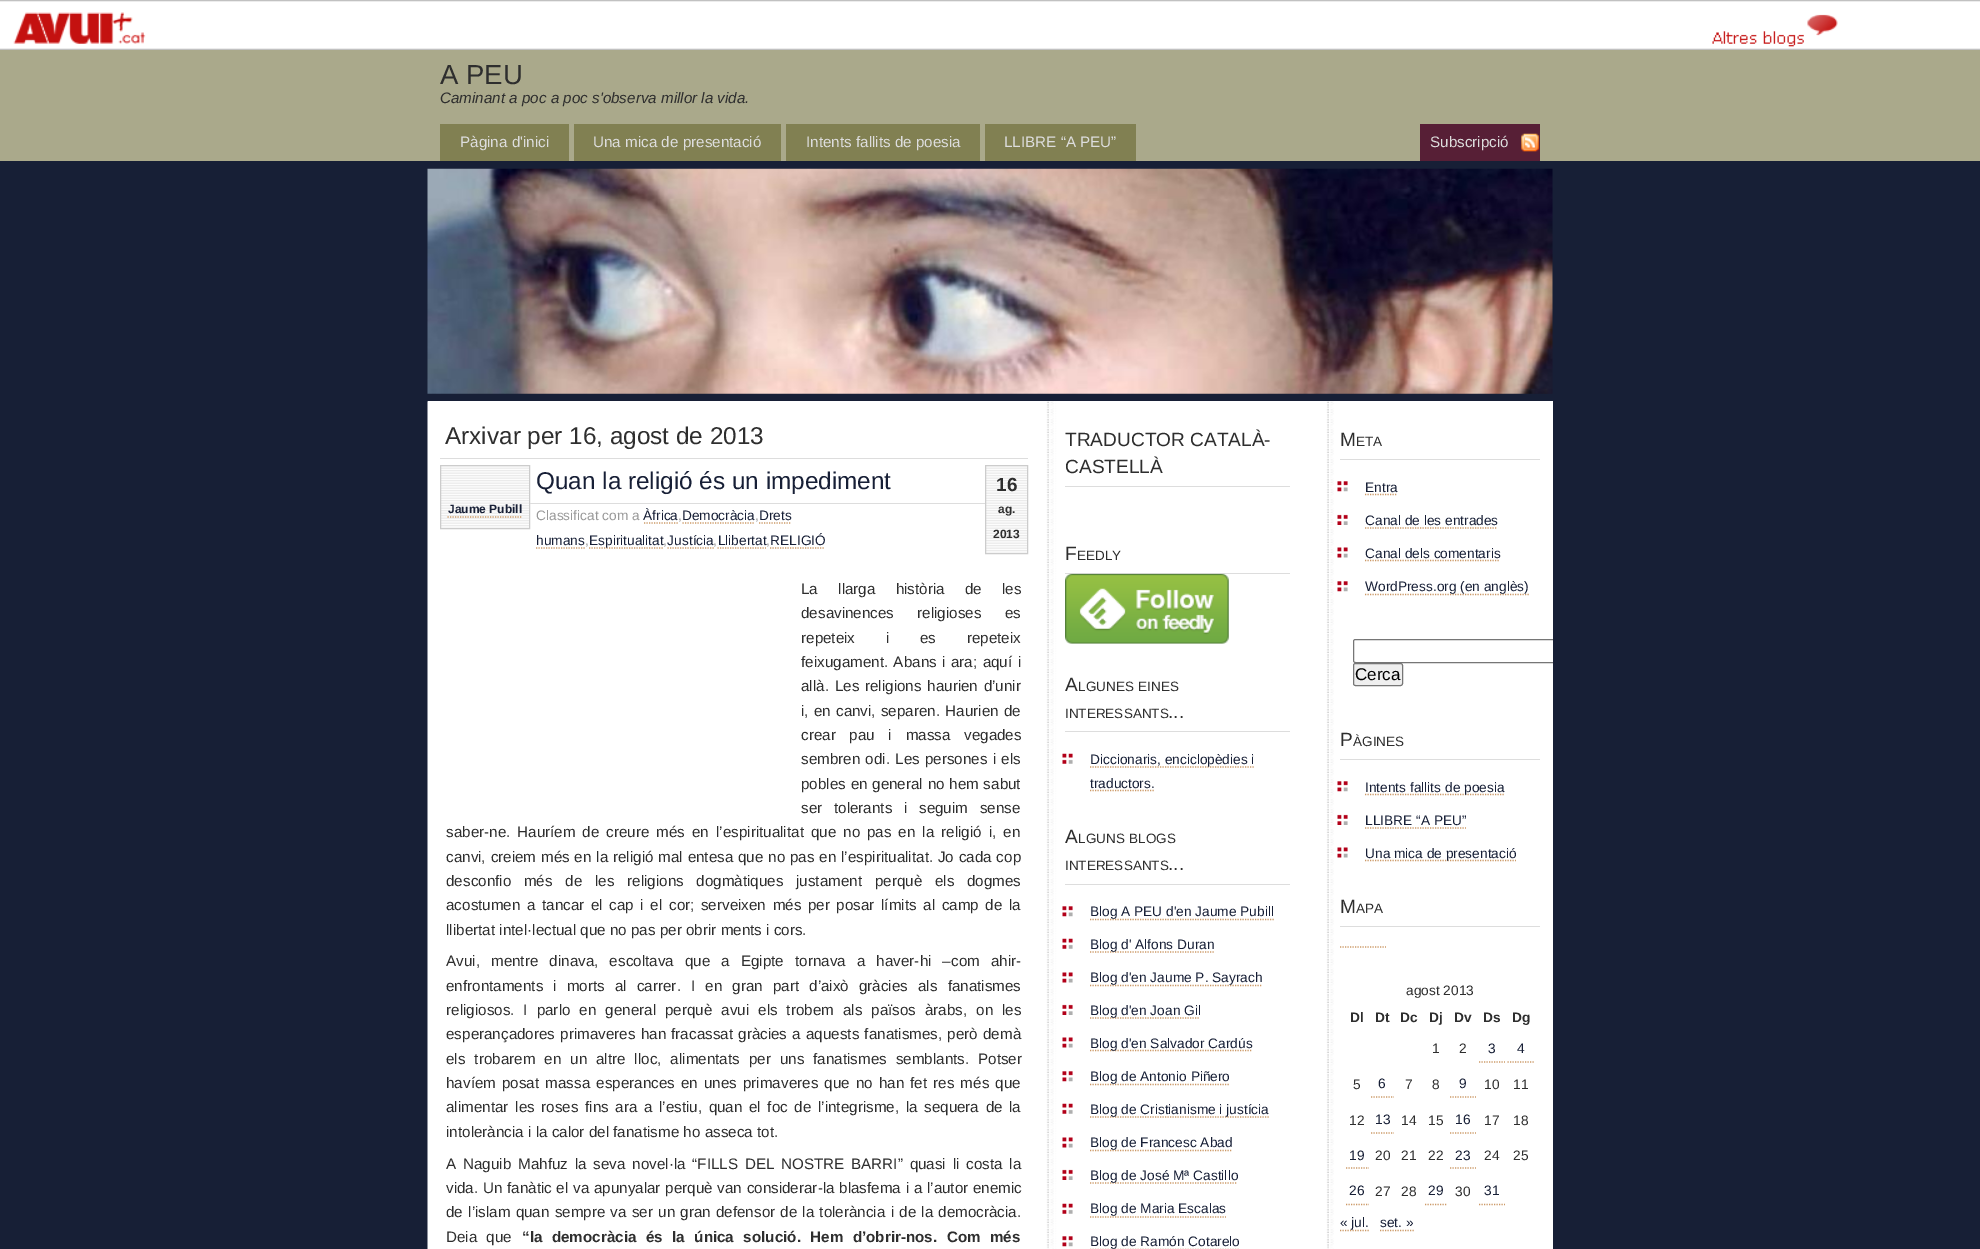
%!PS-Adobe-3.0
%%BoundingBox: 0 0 1980 1249
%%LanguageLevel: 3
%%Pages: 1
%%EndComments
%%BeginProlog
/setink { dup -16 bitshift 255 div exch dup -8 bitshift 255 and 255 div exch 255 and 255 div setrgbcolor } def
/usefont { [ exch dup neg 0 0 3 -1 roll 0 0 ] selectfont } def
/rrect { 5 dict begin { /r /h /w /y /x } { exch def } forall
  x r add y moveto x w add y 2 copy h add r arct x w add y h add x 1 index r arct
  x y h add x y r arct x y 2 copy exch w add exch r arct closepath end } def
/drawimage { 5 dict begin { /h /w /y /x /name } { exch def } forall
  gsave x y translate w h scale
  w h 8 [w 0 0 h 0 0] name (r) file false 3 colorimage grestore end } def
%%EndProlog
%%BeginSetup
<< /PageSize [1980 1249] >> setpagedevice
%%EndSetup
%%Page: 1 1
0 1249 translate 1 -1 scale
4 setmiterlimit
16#171F36 setink
0 0 1980 1249 rectfill
(img1.raw) 0 0 1980 50 drawimage
(img2.raw) 13 12 133 32 drawimage
(img3.raw) 1712 14 126 33 drawimage
16#AAA98B setink
0 50 1980 111 rectfill
/LiberationSans-Regular 27.5 usefont
16#2E2E2E setink
440 84 moveto (A PEU) show
/LiberationSans-Italic 15.2 usefont
440 103 moveto (Caminant a poc a poc s'observa millor la vida.) show
16#818052 setink
440 124 129 37 rectfill
/LiberationSans-Regular 15.2 usefont
16#DDDDDD setink
460 147 moveto (Pàgina d'inici) show
16#818052 setink
574 124 207 37 rectfill
16#DDDDDD setink
593 147 moveto (Una mica de presentació) show
16#818052 setink
786 124 194 37 rectfill
16#DDDDDD setink
806 147 moveto (Intents fallits de poesia) show
16#818052 setink
985 124 151 37 rectfill
16#DDDDDD setink
1004 147 moveto (LLIBRE “A PEU”) show
16#571F36 setink
1420 124 120 37 rectfill
16#DDDDDD setink
1430 147 moveto (Subscripció) show
(img4.raw) 1521 133 18 19 drawimage
(img5.raw) 427 168 1126 226 drawimage
16#FFFFFF setink
428 401 1125 848 rectfill
(img6.raw) 427 401 907 848 drawimage
16#DDDDDD setink
440 458 588 1 rectfill
/LiberationSans-Regular 24.3 usefont
16#2E2E2E setink
445 444 moveto (Arxivar per 16, agost de 2013) show
(img7.raw) 441 466 88 62 drawimage
16#CCCCCC setink
440.5 465.5 89 63 rectstroke
/LiberationSans-Bold 12 usefont
16#171F36 setink
448 513 moveto (Jaume Pubill) show
16#CC9966 setink
1.2 setlinewidth
[1.25 1.25] 0 setdash
447.5 517 moveto 522.5 517 lineto stroke
16#DDDDDD setink
530 503 455 1 rectfill
/LiberationSans-Regular 24.3 usefont
16#171F36 setink
536 489 moveto (Quan la religió és un impediment) show
(img8.raw) 986 466 41 87 drawimage
16#CCCCCC setink
1 setlinewidth
[] 0 setdash
985.5 465.5 42 88 rectstroke
/LiberationSans-Bold 19 usefont
16#2E2E2E setink
996 491 moveto (16) show
/LiberationSans-Bold 12 usefont
998 513 moveto (ag.) show
993 538 moveto (2013) show
/LiberationSans-Regular 13.7 usefont
16#999999 setink
536 520 moveto (Classificat com a) show
16#171F36 setink
643 520 moveto (Àfrica Democràcia Drets) show
16#CC9966 setink
1.2 setlinewidth
[1.25 1.25] 0 setdash
644 523 moveto 679 523 lineto stroke
16#999999 setink
678 520 moveto (,) show
755 520 moveto (,) show
16#CC9966 setink
682.5 523 moveto 755 523 lineto stroke
16#171F36 setink
536 545 moveto (humans) show
16#CC9966 setink
759 523 moveto 791 523 lineto stroke
536 548 moveto 585 548 lineto stroke
16#999999 setink
585 545 moveto (,) show
16#CC9966 setink
589 548 moveto 664 548 lineto stroke
16#171F36 setink
589 545 moveto (Espiritualitat Justícia Llibertat RELIGIÓ) show
16#999999 setink
[
    [(,) 663 545]
    [(,) 713 545]
    [(,) 766 545]
] { aload pop moveto show } forall
16#CC9966 setink
667.5 548 moveto 714 548 lineto stroke
717.5 548 moveto 766 548 lineto stroke
770 548 moveto 825 548 lineto stroke
/LiberationSans-Regular 15.2 usefont
16#2E2E2E setink
801 594 moveto 16 0 32 (La llarga història de les) widthshow
801 618 moveto 19 0 32 (desavinences religioses es) widthshow
801 643 moveto 26.5 0 32 (repeteix i es repeteix) widthshow
801 667 moveto 1.25 0 32 (feixugament. Abans i ara; aquí i) widthshow
801 691 moveto 1.5 0 32 (allà. Les religions haurien d’unir) widthshow
801 716 moveto 1 0 32 (i, en canvi, separen. Haurien de) widthshow
801 740 moveto 9.5 0 32 (crear pau i massa vegades) widthshow
801 764 moveto 1 0 32 (sembren odi. Les persones i els) widthshow
801 789 moveto 0.5 0 32 (pobles en general no hem sabut) widthshow
801 813 moveto 7.5 0 32 (ser tolerants i seguim sense) widthshow
446 837 moveto 2.75 0 32 (saber-ne. Hauríem de creure més en l’espiritualitat que no pas en la religió i, en) widthshow
446 862 moveto 0.6 0 32 (canvi, creiem més en la religió mal entesa que no pas en l’espiritualitat. Jo cada cop) widthshow
446 886 moveto 8.5 0 32 (desconfio més de les religions dogmàtiques justament perquè els dogmes) widthshow
446 910 moveto 2.4 0 32 (acostumen a tancar el cap i el cor; serveixen més per posar límits al camp de la) widthshow
446 935 moveto (llibertat intel·lectual que no pas per obrir ments i cors.) show
446 966 moveto 6.9 0 32 (Avui, mentre dinava, escoltava que a Egipte tornava a haver-hi –com ahir-) widthshow
446 991 moveto 5.9 0 32 (enfrontaments i morts al carrer. I en gran part d’això gràcies als fanatismes) widthshow
446 1015 moveto 4.75 0 32 (religiosos. I parlo en general perquè avui els trobem als països àrabs, on les) widthshow
446 1039 moveto 1 0 32 (esperançadores primaveres han fracassat gràcies a aquests fanatismes, però demà) widthshow
446 1064 moveto 4.75 0 32 (els trobarem en un altre lloc, alimentats per uns fanatismes semblants. Potser) widthshow
446 1088 moveto 1.9 0 32 (havíem posat massa esperances en unes primaveres que no han fet res més que) widthshow
446 1112 moveto 2.4 0 32 (alimentar les roses fins ara a l’estiu, quan el foc de l’integrisme, la sequera de la) widthshow
446 1137 moveto (intolerància i la calor del fanatisme ho asseca tot.) show
446 1169 moveto 2.6 0 32 (A Naguib Mahfuz la seva novel·la “FILLS DEL NOSTRE BARRI” quasi li costa la) widthshow
446 1193 moveto 0.5 0 32 (vida. Un fanàtic el va apunyalar perquè van considerar-la blasfema i a l’autor enemic) widthshow
446 1217 moveto 1 0 32 (de l’islam quan sempre va ser un gran defensor de la tolerància i de la democràcia.) widthshow
446 1242 moveto 5 0 32 (Deia que) widthshow
/LiberationSans-Bold 15.2 usefont
522 1242 moveto 5.25 0 32 (“la democràcia és la única solució. Hem d’obrir-nos. Com més) widthshow
16#DDDDDD setink
1065 486 225 1 rectfill
/LiberationSans-Regular 19.1 usefont
16#2E2E2E setink
1065 446 moveto (TRADUCTOR CATALÀ-) show
1065 473 moveto (CASTELLÀ) show
16#DDDDDD setink
1065 573 225 1 rectfill
16#2E2E2E setink
1065 560 moveto (F) show
/LiberationSans-Regular 13.5 usefont
1077 560 moveto (EEDLY) show
(img9.raw) 1065 573 164 71 drawimage
16#DDDDDD setink
1065 731 225 1 rectfill
/LiberationSans-Regular 19.1 usefont
16#2E2E2E setink
1065 691 moveto (A) show
/LiberationSans-Regular 13.5 usefont
[
    [(LGUNES) 1078 691]
    [(EINES) 1138 691]
    [(INTERESSANTS) 1065 718]
] { aload pop moveto show } forall
/LiberationSans-Regular 19.1 usefont
1168 718 moveto (...) show
(img10.raw) 1062 753 11 11 drawimage
16#CC9966 setink
1090 767 moveto 1254 767 lineto stroke
/LiberationSans-Regular 13.7 usefont
16#171F36 setink
1090 764 moveto (Diccionaris, enciclopèdies i) show
1090 788 moveto (traductors.) show
16#CC9966 setink
1090 790.5 moveto 1155 790.5 lineto stroke
16#DDDDDD setink
1065 884 225 1 rectfill
/LiberationSans-Regular 19.1 usefont
16#2E2E2E setink
1065 843 moveto (A) show
/LiberationSans-Regular 13.5 usefont
[
    [(LGUNS) 1078 843]
    [(BLOGS) 1129 843]
    [(INTERESSANTS) 1065 870]
] { aload pop moveto show } forall
/LiberationSans-Regular 19.1 usefont
1168 870 moveto (...) show
(img11.raw) 1062 906 11 11 drawimage
16#CC9966 setink
1090 919.5 moveto 1274 919.5 lineto stroke
/LiberationSans-Regular 13.7 usefont
16#171F36 setink
1090 916 moveto (Blog A PEU d'en Jaume Pubill) show
(img10.raw) 1062 938 11 11 drawimage
16#CC9966 setink
1090 952 moveto 1214 952 lineto stroke
16#171F36 setink
1090 949 moveto (Blog d' Alfons Duran) show
(img12.raw) 1062 972 11 11 drawimage
16#CC9966 setink
1090 985.5 moveto 1262.5 985.5 lineto stroke
16#171F36 setink
1090 982 moveto (Blog d'en Jaume P. Sayrach) show
(img13.raw) 1062 1004 11 11 drawimage
16#CC9966 setink
1090 1018 moveto 1200 1018 lineto stroke
16#171F36 setink
1090 1015 moveto (Blog d'en Joan Gil) show
(img12.raw) 1062 1037 11 11 drawimage
16#CC9966 setink
1090 1050.5 moveto 1252.5 1050.5 lineto stroke
16#171F36 setink
1090 1048 moveto (Blog d'en Salvador Cardús) show
(img11.raw) 1062 1071 11 11 drawimage
16#CC9966 setink
1090 1084.5 moveto 1230 1084.5 lineto stroke
16#171F36 setink
1090 1081 moveto (Blog de Antonio Piñero) show
(img10.raw) 1062 1103 11 11 drawimage
16#CC9966 setink
1090 1117 moveto 1269 1117 lineto stroke
16#171F36 setink
1090 1114 moveto (Blog de Cristianisme i justícia) show
(img12.raw) 1062 1137 11 11 drawimage
16#CC9966 setink
1090 1150.5 moveto 1232.5 1150.5 lineto stroke
16#171F36 setink
1090 1147 moveto (Blog de Francesc Abad) show
(img13.raw) 1062 1169 11 11 drawimage
16#CC9966 setink
1090 1183 moveto 1237.5 1183 lineto stroke
16#171F36 setink
1090 1180 moveto (Blog de José Mª Castillo) show
(img10.raw) 1062 1203 11 11 drawimage
1090 1213 moveto (Blog de Maria Escalas) show
16#CC9966 setink
1090 1217 moveto 1226 1217 lineto stroke
(img11.raw) 1062 1236 11 11 drawimage
1090 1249.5 moveto 1240 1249.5 lineto stroke
16#171F36 setink
1090 1246 moveto (Blog de Ramón Cotarelo) show
16#DDDDDD setink
1340 459 200 1 rectfill
/LiberationSans-Regular 19.1 usefont
16#2E2E2E setink
1340 446 moveto (M) show
/LiberationSans-Regular 13.5 usefont
1356 446 moveto (ETA) show
(img11.raw) 1337 481 11 11 drawimage
/LiberationSans-Regular 13.7 usefont
16#171F36 setink
1365 492 moveto (Entra) show
16#CC9966 setink
1365 494.5 moveto 1397.5 494.5 lineto stroke
(img13.raw) 1337 514 11 11 drawimage
16#171F36 setink
1365 525 moveto (Canal de les entrades) show
16#CC9966 setink
1365 528 moveto 1497.5 528 lineto stroke
(img12.raw) 1337 547 11 11 drawimage
16#171F36 setink
1365 558 moveto (Canal dels comentaris) show
16#CC9966 setink
1365 560.5 moveto 1500 560.5 lineto stroke
(img11.raw) 1337 581 11 11 drawimage
1365 594.5 moveto 1529 594.5 lineto stroke
16#171F36 setink
1365 591 moveto (WordPress.org \(en anglès\)) show
gsave
428 401 1125 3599 rectclip
16#767676 setink
1 setlinewidth
[] 0 setdash
1353.5 639.5 225 23 2 rrect stroke
grestore
16#EFEFEF setink
1353.5 663.5 49 22 2 rrect gsave fill grestore
16#767676 setink
1 setlinewidth
[] 0 setdash
stroke
/LiberationSans-Regular 17 usefont
16#000000 setink
1355 680 moveto (Cerca) show
16#DDDDDD setink
1340 759 200 1 rectfill
/LiberationSans-Regular 19.1 usefont
16#2E2E2E setink
1340 746 moveto (P) show
/LiberationSans-Regular 13.5 usefont
1353 746 moveto (ÀGINES) show
(img14.raw) 1337 781 11 11 drawimage
16#CC9966 setink
1.2 setlinewidth
[1.25 1.25] 0 setdash
1365 794.5 moveto 1504 794.5 lineto stroke
/LiberationSans-Regular 13.7 usefont
16#171F36 setink
1365 792 moveto (Intents fallits de poesia) show
(img13.raw) 1337 814 11 11 drawimage
1365 825 moveto (LLIBRE “A PEU”) show
16#CC9966 setink
1365 828 moveto 1466 828 lineto stroke
(img12.raw) 1337 847 11 11 drawimage
1365 860.5 moveto 1516 860.5 lineto stroke
16#171F36 setink
1365 858 moveto (Una mica de presentació) show
16#DDDDDD setink
1340 926 200 1 rectfill
/LiberationSans-Regular 19.1 usefont
16#2E2E2E setink
1340 913 moveto (M) show
/LiberationSans-Regular 13.5 usefont
1356 913 moveto (APA) show
16#CC9966 setink
1340 947 moveto 1386 947 lineto stroke
/LiberationSans-Regular 13.7 usefont
16#2E2E2E setink
1406 995 moveto (agost 2013) show
/LiberationSans-Bold 13.7 usefont
[
    [(Dl) 1350 1022]
    [(Dt) 1375 1022]
    [(Dc) 1400 1022]
    [(Dj) 1429 1022]
    [(Dv) 1454 1022]
    [(Ds) 1483 1022]
    [(Dg) 1512 1022]
] { aload pop moveto show } forall
/LiberationSans-Regular 13.7 usefont
1432 1053 moveto (1) show
1459 1053 moveto (2) show
16#CC9966 setink
1479 1062 moveto 1505 1062 lineto 1507.5 1062 moveto 1535 1062 lineto stroke
16#171F36 setink
1488 1053 moveto (3) show
1517 1053 moveto (4) show
16#2E2E2E setink
1353 1089 moveto (5) show
16#CC9966 setink
1371 1097 moveto 1394 1097 lineto stroke
16#171F36 setink
1378 1088 moveto (6) show
16#2E2E2E setink
1405 1089 moveto (7) show
1432 1089 moveto (8) show
16#CC9966 setink
1450 1097 moveto 1476 1097 lineto stroke
16#171F36 setink
1459 1088 moveto (9) show
16#2E2E2E setink
[
    [(10) 1484 1089]
    [(11) 1513 1089]
    [(12) 1349 1125]
] { aload pop moveto show } forall
16#CC9966 setink
1371 1133 moveto 1394 1133 lineto stroke
16#171F36 setink
1375 1124 moveto (13) show
16#2E2E2E setink
1401 1125 moveto (14) show
1428 1125 moveto (15) show
16#CC9966 setink
1450 1133 moveto 1476 1133 lineto stroke
16#171F36 setink
1455 1124 moveto (16) show
16#2E2E2E setink
1484 1125 moveto (17) show
1513 1125 moveto (18) show
16#CC9966 setink
1346 1168 moveto 1369 1168 lineto stroke
16#171F36 setink
1349 1160 moveto (19) show
16#2E2E2E setink
[
    [(20) 1375 1160]
    [(21) 1401 1160]
    [(22) 1428 1160]
] { aload pop moveto show } forall
16#CC9966 setink
1450 1168 moveto 1476 1168 lineto stroke
16#171F36 setink
1455 1160 moveto (23) show
16#2E2E2E setink
1484 1160 moveto (24) show
1513 1160 moveto (25) show
16#CC9966 setink
1346 1204.5 moveto 1369 1204.5 lineto stroke
16#171F36 setink
1349 1195 moveto (26) show
16#2E2E2E setink
1375 1196 moveto (27) show
1401 1196 moveto (28) show
16#CC9966 setink
1425 1204.5 moveto 1447.5 1204.5 lineto stroke
16#171F36 setink
1428 1195 moveto (29) show
16#2E2E2E setink
1455 1196 moveto (30) show
16#CC9966 setink
1479 1204.5 moveto 1505 1204.5 lineto stroke
16#171F36 setink
1484 1195 moveto (31) show
16#CC9966 setink
1340 1230.5 moveto 1369 1230.5 lineto stroke
16#171F36 setink
1340 1227 moveto (« jul.) show
1380 1227 moveto (set. ») show
16#CC9966 setink
1380 1230.5 moveto 1414 1230.5 lineto stroke
showpage
%%EOF
